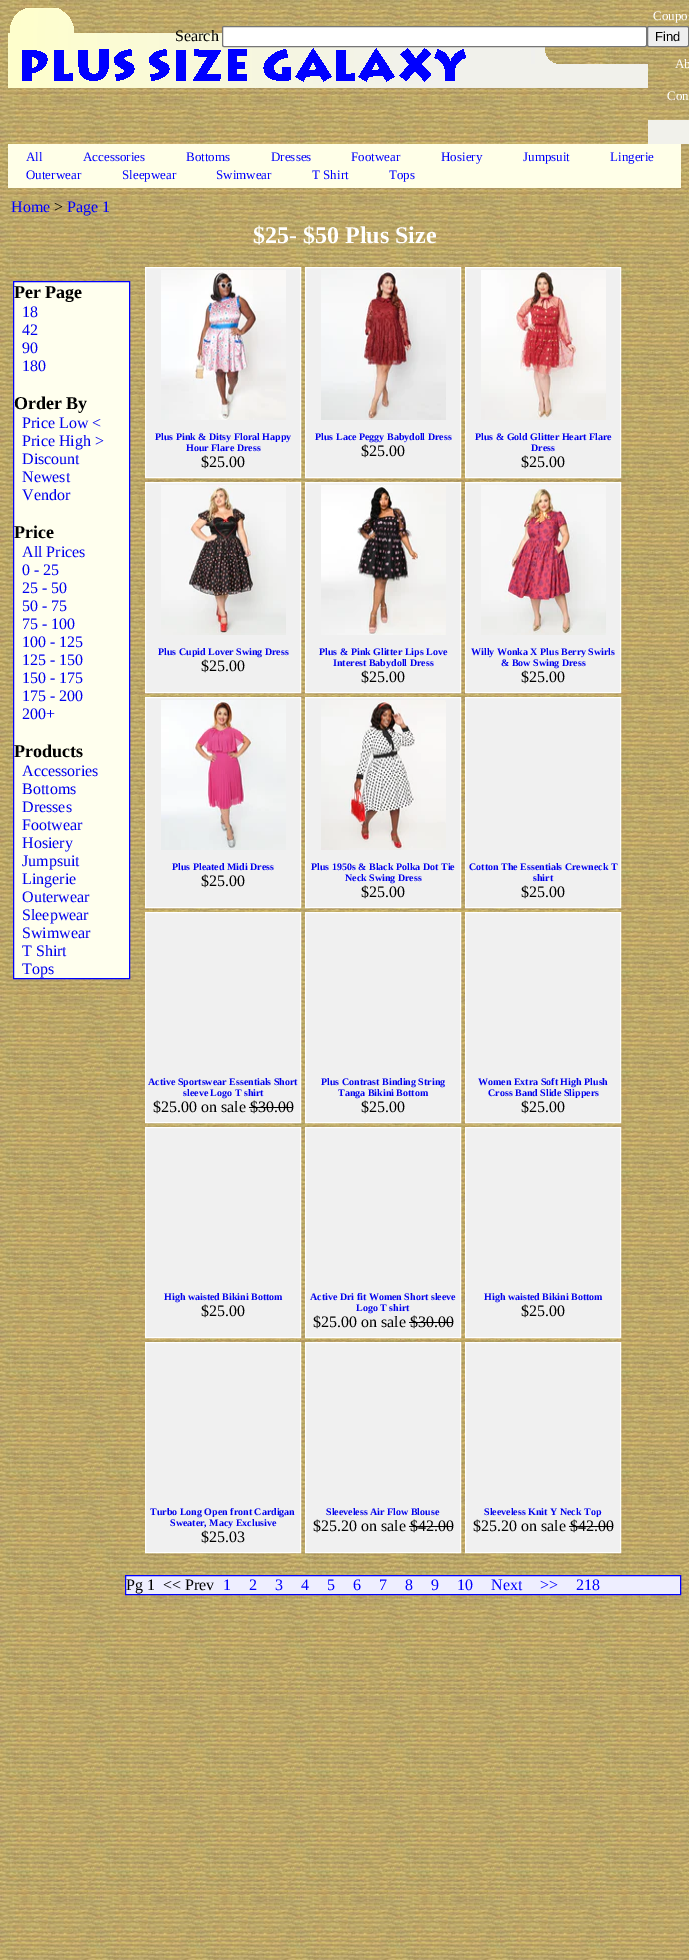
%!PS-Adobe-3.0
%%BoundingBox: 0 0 689 1960
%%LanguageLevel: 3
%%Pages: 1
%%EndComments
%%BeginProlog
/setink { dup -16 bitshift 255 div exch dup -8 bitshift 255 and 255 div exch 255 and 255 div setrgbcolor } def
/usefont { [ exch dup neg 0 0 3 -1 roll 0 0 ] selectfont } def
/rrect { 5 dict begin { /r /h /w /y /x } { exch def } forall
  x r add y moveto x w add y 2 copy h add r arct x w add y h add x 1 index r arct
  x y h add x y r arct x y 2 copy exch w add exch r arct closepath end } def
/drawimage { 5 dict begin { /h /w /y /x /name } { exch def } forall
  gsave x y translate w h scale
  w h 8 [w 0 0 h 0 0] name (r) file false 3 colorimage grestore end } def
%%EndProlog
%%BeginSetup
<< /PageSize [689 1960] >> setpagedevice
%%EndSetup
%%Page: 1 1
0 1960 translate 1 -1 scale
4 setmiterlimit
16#FFFFFF setink
0 0 689 1960 rectfill
(img1.raw) 0 0 689 1960 drawimage
(img2.raw) 8 8 640 80 drawimage
/LiberationSerif-Regular 13 usefont
[
    [(Coupo) 653 20]
    [(Ab) 675 68]
    [(Con) 667 100]
] { aload pop moveto show } forall
/LiberationSerif-Regular 16 usefont
16#000000 setink
175 41 moveto (Search) show
16#FFFFFF setink
222.5 26.5 424 20 1.5 rrect gsave fill grestore
16#767676 setink
stroke
16#EFEFEF setink
647.5 26.5 41 20 1.5 rrect gsave fill grestore
16#767676 setink
stroke
/LiberationSans-Regular 13 usefont
16#000000 setink
655 41 moveto (Find) show
16#F1F1EB setink
648 120 41 24 rectfill
16#FFFFE8 setink
8 144 673 44 rectfill
/LiberationSerif-Regular 13 usefont
16#0000FF setink
[
    [(All) 26 161]
    [(Accessories) 83 161]
    [(Bottoms) 186 161]
    [(Dresses) 271 161]
    [(Footwear) 351 161]
    [(Hosiery) 441 161]
    [(Jumpsuit) 523 161]
    [(Lingerie) 610 161]
    [(Outerwear) 26 179]
    [(Sleepwear) 122 179]
    [(Swimwear) 216 179]
    [(T Shirt) 312 179]
    [(Tops) 389 179]
] { aload pop moveto show } forall
/LiberationSerif-Regular 16 usefont
11 212 moveto (Home) show
16#000000 setink
54 212 moveto (>) show
16#0000FF setink
67 212 moveto (Page 1) show
/LiberationSerif-Bold 24 usefont
16#FFFFFF setink
253 243 moveto ($25- $50 Plus Size) show
16#FFFFEE setink
13.5 281.5 moveto 129.5 281.5 lineto 129.5 978.5 lineto 13.5 978.5 lineto closepath gsave fill grestore
16#0000FF setink
stroke
/LiberationSerif-Bold 18 usefont
16#000000 setink
14 298 moveto (Per Page) show
/LiberationSerif-Regular 16 usefont
16#0000EE setink
[
    [(18) 22 317]
    [(42) 22 335]
    [(90) 22 353]
    [(180) 22 371]
] { aload pop moveto show } forall
/LiberationSerif-Bold 18 usefont
16#000000 setink
14 409 moveto (Order By) show
/LiberationSerif-Regular 16 usefont
16#0000EE setink
[
    [(Price Low <) 22 428]
    [(Price High >) 22 446]
    [(Discount) 22 464]
    [(Newest) 22 482]
    [(Vendor) 22 500]
] { aload pop moveto show } forall
/LiberationSerif-Bold 18 usefont
16#000000 setink
14 538 moveto (Price) show
/LiberationSerif-Regular 16 usefont
16#0000EE setink
[
    [(All Prices) 22 557]
    [(0 - 25) 22 575]
    [(25 - 50) 22 593]
    [(50 - 75) 22 611]
    [(75 - 100) 22 629]
    [(100 - 125) 22 647]
    [(125 - 150) 22 665]
    [(150 - 175) 22 683]
    [(175 - 200) 22 701]
    [(200+) 22 719]
] { aload pop moveto show } forall
/LiberationSerif-Bold 18 usefont
16#000000 setink
14 757 moveto (Products) show
/LiberationSerif-Regular 16 usefont
16#0000EE setink
[
    [(Accessories) 22 776]
    [(Bottoms) 22 794]
    [(Dresses) 22 812]
    [(Footwear) 22 830]
    [(Hosiery) 22 848]
    [(Jumpsuit) 22 866]
    [(Lingerie) 22 884]
    [(Outerwear) 22 902]
    [(Sleepwear) 22 920]
    [(Swimwear) 22 938]
    [(T Shirt) 22 956]
    [(Tops) 22 974]
] { aload pop moveto show } forall
16#F0F0F0 setink
145.5 267.5 moveto 300.5 267.5 lineto 300.5 477.5 lineto 145.5 477.5 lineto closepath gsave fill grestore
16#FFFFFF setink
stroke
(img3.raw) 161 270 125 150 drawimage
/LiberationSerif-Bold 10 usefont
16#0000EE setink
155 440 moveto (Plus Pink & Ditsy Floral Happy) show
186 451 moveto (Hour Flare Dress) show
/LiberationSerif-Regular 16 usefont
16#000000 setink
201 467 moveto ($25.00) show
16#F0F0F0 setink
305.5 267.5 moveto 460.5 267.5 lineto 460.5 477.5 lineto 305.5 477.5 lineto closepath gsave fill grestore
16#FFFFFF setink
stroke
(img4.raw) 321 270 125 150 drawimage
/LiberationSerif-Bold 10 usefont
16#0000EE setink
315 440 moveto (Plus Lace Peggy Babydoll Dress) show
/LiberationSerif-Regular 16 usefont
16#000000 setink
361 456 moveto ($25.00) show
16#F0F0F0 setink
465.5 267.5 moveto 620.5 267.5 lineto 620.5 477.5 lineto 465.5 477.5 lineto closepath gsave fill grestore
16#FFFFFF setink
stroke
(img5.raw) 481 270 125 150 drawimage
/LiberationSerif-Bold 10 usefont
16#0000EE setink
475 440 moveto (Plus & Gold Glitter Heart Flare) show
531 451 moveto (Dress) show
/LiberationSerif-Regular 16 usefont
16#000000 setink
521 467 moveto ($25.00) show
16#F0F0F0 setink
145.5 482.5 moveto 300.5 482.5 lineto 300.5 692.5 lineto 145.5 692.5 lineto closepath gsave fill grestore
16#FFFFFF setink
stroke
(img6.raw) 161 485 125 150 drawimage
/LiberationSerif-Bold 10 usefont
16#0000EE setink
158 655 moveto (Plus Cupid Lover Swing Dress) show
/LiberationSerif-Regular 16 usefont
16#000000 setink
201 671 moveto ($25.00) show
16#F0F0F0 setink
305.5 482.5 moveto 460.5 482.5 lineto 460.5 692.5 lineto 305.5 692.5 lineto closepath gsave fill grestore
16#FFFFFF setink
stroke
(img7.raw) 321 485 125 150 drawimage
/LiberationSerif-Bold 10 usefont
16#0000EE setink
319 655 moveto (Plus & Pink Glitter Lips Love) show
333 666 moveto (Interest Babydoll Dress) show
/LiberationSerif-Regular 16 usefont
16#000000 setink
361 682 moveto ($25.00) show
16#F0F0F0 setink
465.5 482.5 moveto 620.5 482.5 lineto 620.5 692.5 lineto 465.5 692.5 lineto closepath gsave fill grestore
16#FFFFFF setink
stroke
(img8.raw) 481 485 125 150 drawimage
/LiberationSerif-Bold 10 usefont
16#0000EE setink
471 655 moveto (Willy Wonka X Plus Berry Swirls) show
501 666 moveto (& Bow Swing Dress) show
/LiberationSerif-Regular 16 usefont
16#000000 setink
521 682 moveto ($25.00) show
16#F0F0F0 setink
145.5 697.5 moveto 300.5 697.5 lineto 300.5 907.5 lineto 145.5 907.5 lineto closepath gsave fill grestore
16#FFFFFF setink
stroke
(img9.raw) 161 700 125 150 drawimage
/LiberationSerif-Bold 10 usefont
16#0000EE setink
172 870 moveto (Plus Pleated Midi Dress) show
/LiberationSerif-Regular 16 usefont
16#000000 setink
201 886 moveto ($25.00) show
16#F0F0F0 setink
305.5 697.5 moveto 460.5 697.5 lineto 460.5 907.5 lineto 305.5 907.5 lineto closepath gsave fill grestore
16#FFFFFF setink
stroke
(img10.raw) 321 700 125 150 drawimage
/LiberationSerif-Bold 10 usefont
16#0000EE setink
311 870 moveto (Plus 1950s & Black Polka Dot Tie) show
345 881 moveto (Neck Swing Dress) show
/LiberationSerif-Regular 16 usefont
16#000000 setink
361 897 moveto ($25.00) show
16#F0F0F0 setink
465.5 697.5 moveto 620.5 697.5 lineto 620.5 907.5 lineto 465.5 907.5 lineto closepath gsave fill grestore
16#FFFFFF setink
stroke
/LiberationSerif-Bold 10 usefont
16#0000EE setink
469 870 moveto (Cotton The Essentials Crewneck T) show
533 881 moveto (shirt) show
/LiberationSerif-Regular 16 usefont
16#000000 setink
521 897 moveto ($25.00) show
16#F0F0F0 setink
145.5 912.5 moveto 300.5 912.5 lineto 300.5 1122.5 lineto 145.5 1122.5 lineto closepath gsave fill grestore
16#FFFFFF setink
stroke
/LiberationSerif-Bold 10 usefont
16#0000EE setink
148 1085 moveto (Active Sportswear Essentials Short) show
183 1096 moveto (sleeve Logo T shirt) show
/LiberationSerif-Regular 16 usefont
16#000000 setink
153 1112 moveto ($25.00 on sale $30.00) show
249 1107 44 1 rectfill
16#F0F0F0 setink
305.5 912.5 moveto 460.5 912.5 lineto 460.5 1122.5 lineto 305.5 1122.5 lineto closepath gsave fill grestore
16#FFFFFF setink
stroke
/LiberationSerif-Bold 10 usefont
16#0000EE setink
321 1085 moveto (Plus Contrast Binding String) show
338 1096 moveto (Tanga Bikini Bottom) show
/LiberationSerif-Regular 16 usefont
16#000000 setink
361 1112 moveto ($25.00) show
16#F0F0F0 setink
465.5 912.5 moveto 620.5 912.5 lineto 620.5 1122.5 lineto 465.5 1122.5 lineto closepath gsave fill grestore
16#FFFFFF setink
stroke
/LiberationSerif-Bold 10 usefont
16#0000EE setink
478 1085 moveto (Women Extra Soft High Plush) show
488 1096 moveto (Cross Band Slide Slippers) show
/LiberationSerif-Regular 16 usefont
16#000000 setink
521 1112 moveto ($25.00) show
16#F0F0F0 setink
145.5 1127.5 moveto 300.5 1127.5 lineto 300.5 1337.5 lineto 145.5 1337.5 lineto closepath gsave fill grestore
16#FFFFFF setink
stroke
/LiberationSerif-Bold 10 usefont
16#0000EE setink
164 1300 moveto (High waisted Bikini Bottom) show
/LiberationSerif-Regular 16 usefont
16#000000 setink
201 1316 moveto ($25.00) show
16#F0F0F0 setink
305.5 1127.5 moveto 460.5 1127.5 lineto 460.5 1337.5 lineto 305.5 1337.5 lineto closepath gsave fill grestore
16#FFFFFF setink
stroke
/LiberationSerif-Bold 10 usefont
16#0000EE setink
310 1300 moveto (Active Dri fit Women Short sleeve) show
356 1311 moveto (Logo T shirt) show
/LiberationSerif-Regular 16 usefont
16#000000 setink
313 1327 moveto ($25.00 on sale $30.00) show
409 1322 44 1 rectfill
16#F0F0F0 setink
465.5 1127.5 moveto 620.5 1127.5 lineto 620.5 1337.5 lineto 465.5 1337.5 lineto closepath gsave fill grestore
16#FFFFFF setink
stroke
/LiberationSerif-Bold 10 usefont
16#0000EE setink
484 1300 moveto (High waisted Bikini Bottom) show
/LiberationSerif-Regular 16 usefont
16#000000 setink
521 1316 moveto ($25.00) show
16#F0F0F0 setink
145.5 1342.5 moveto 300.5 1342.5 lineto 300.5 1552.5 lineto 145.5 1552.5 lineto closepath gsave fill grestore
16#FFFFFF setink
stroke
/LiberationSerif-Bold 10 usefont
16#0000EE setink
150 1515 moveto (Turbo Long Open front Cardigan) show
170 1526 moveto (Sweater, Macy Exclusive) show
/LiberationSerif-Regular 16 usefont
16#000000 setink
201 1542 moveto ($25.03) show
16#F0F0F0 setink
305.5 1342.5 moveto 460.5 1342.5 lineto 460.5 1552.5 lineto 305.5 1552.5 lineto closepath gsave fill grestore
16#FFFFFF setink
stroke
/LiberationSerif-Bold 10 usefont
16#0000EE setink
326 1515 moveto (Sleeveless Air Flow Blouse) show
/LiberationSerif-Regular 16 usefont
16#000000 setink
313 1531 moveto ($25.20 on sale $42.00) show
409 1526 44 1 rectfill
16#F0F0F0 setink
465.5 1342.5 moveto 620.5 1342.5 lineto 620.5 1552.5 lineto 465.5 1552.5 lineto closepath gsave fill grestore
16#FFFFFF setink
stroke
/LiberationSerif-Bold 10 usefont
16#0000EE setink
484 1515 moveto (Sleeveless Knit Y Neck Top) show
/LiberationSerif-Regular 16 usefont
16#000000 setink
473 1531 moveto ($25.20 on sale $42.00) show
569 1526 44 1 rectfill
16#EEEEFF setink
125.5 1575.5 moveto 680.5 1575.5 lineto 680.5 1594.5 lineto 125.5 1594.5 lineto closepath gsave fill grestore
16#0000FF setink
stroke
16#000000 setink
126 1590 moveto (Pg 1) show
163 1590 moveto (<< Prev) show
16#0000FF setink
[
    [(1) 223 1590]
    [(2) 249 1590]
    [(3) 275 1590]
    [(4) 301 1590]
    [(5) 327 1590]
    [(6) 353 1590]
    [(7) 379 1590]
    [(8) 405 1590]
    [(9) 431 1590]
    [(10) 457 1590]
    [(Next) 491 1590]
    [(>>) 540 1590]
    [(218) 576 1590]
] { aload pop moveto show } forall
showpage
%%EOF
